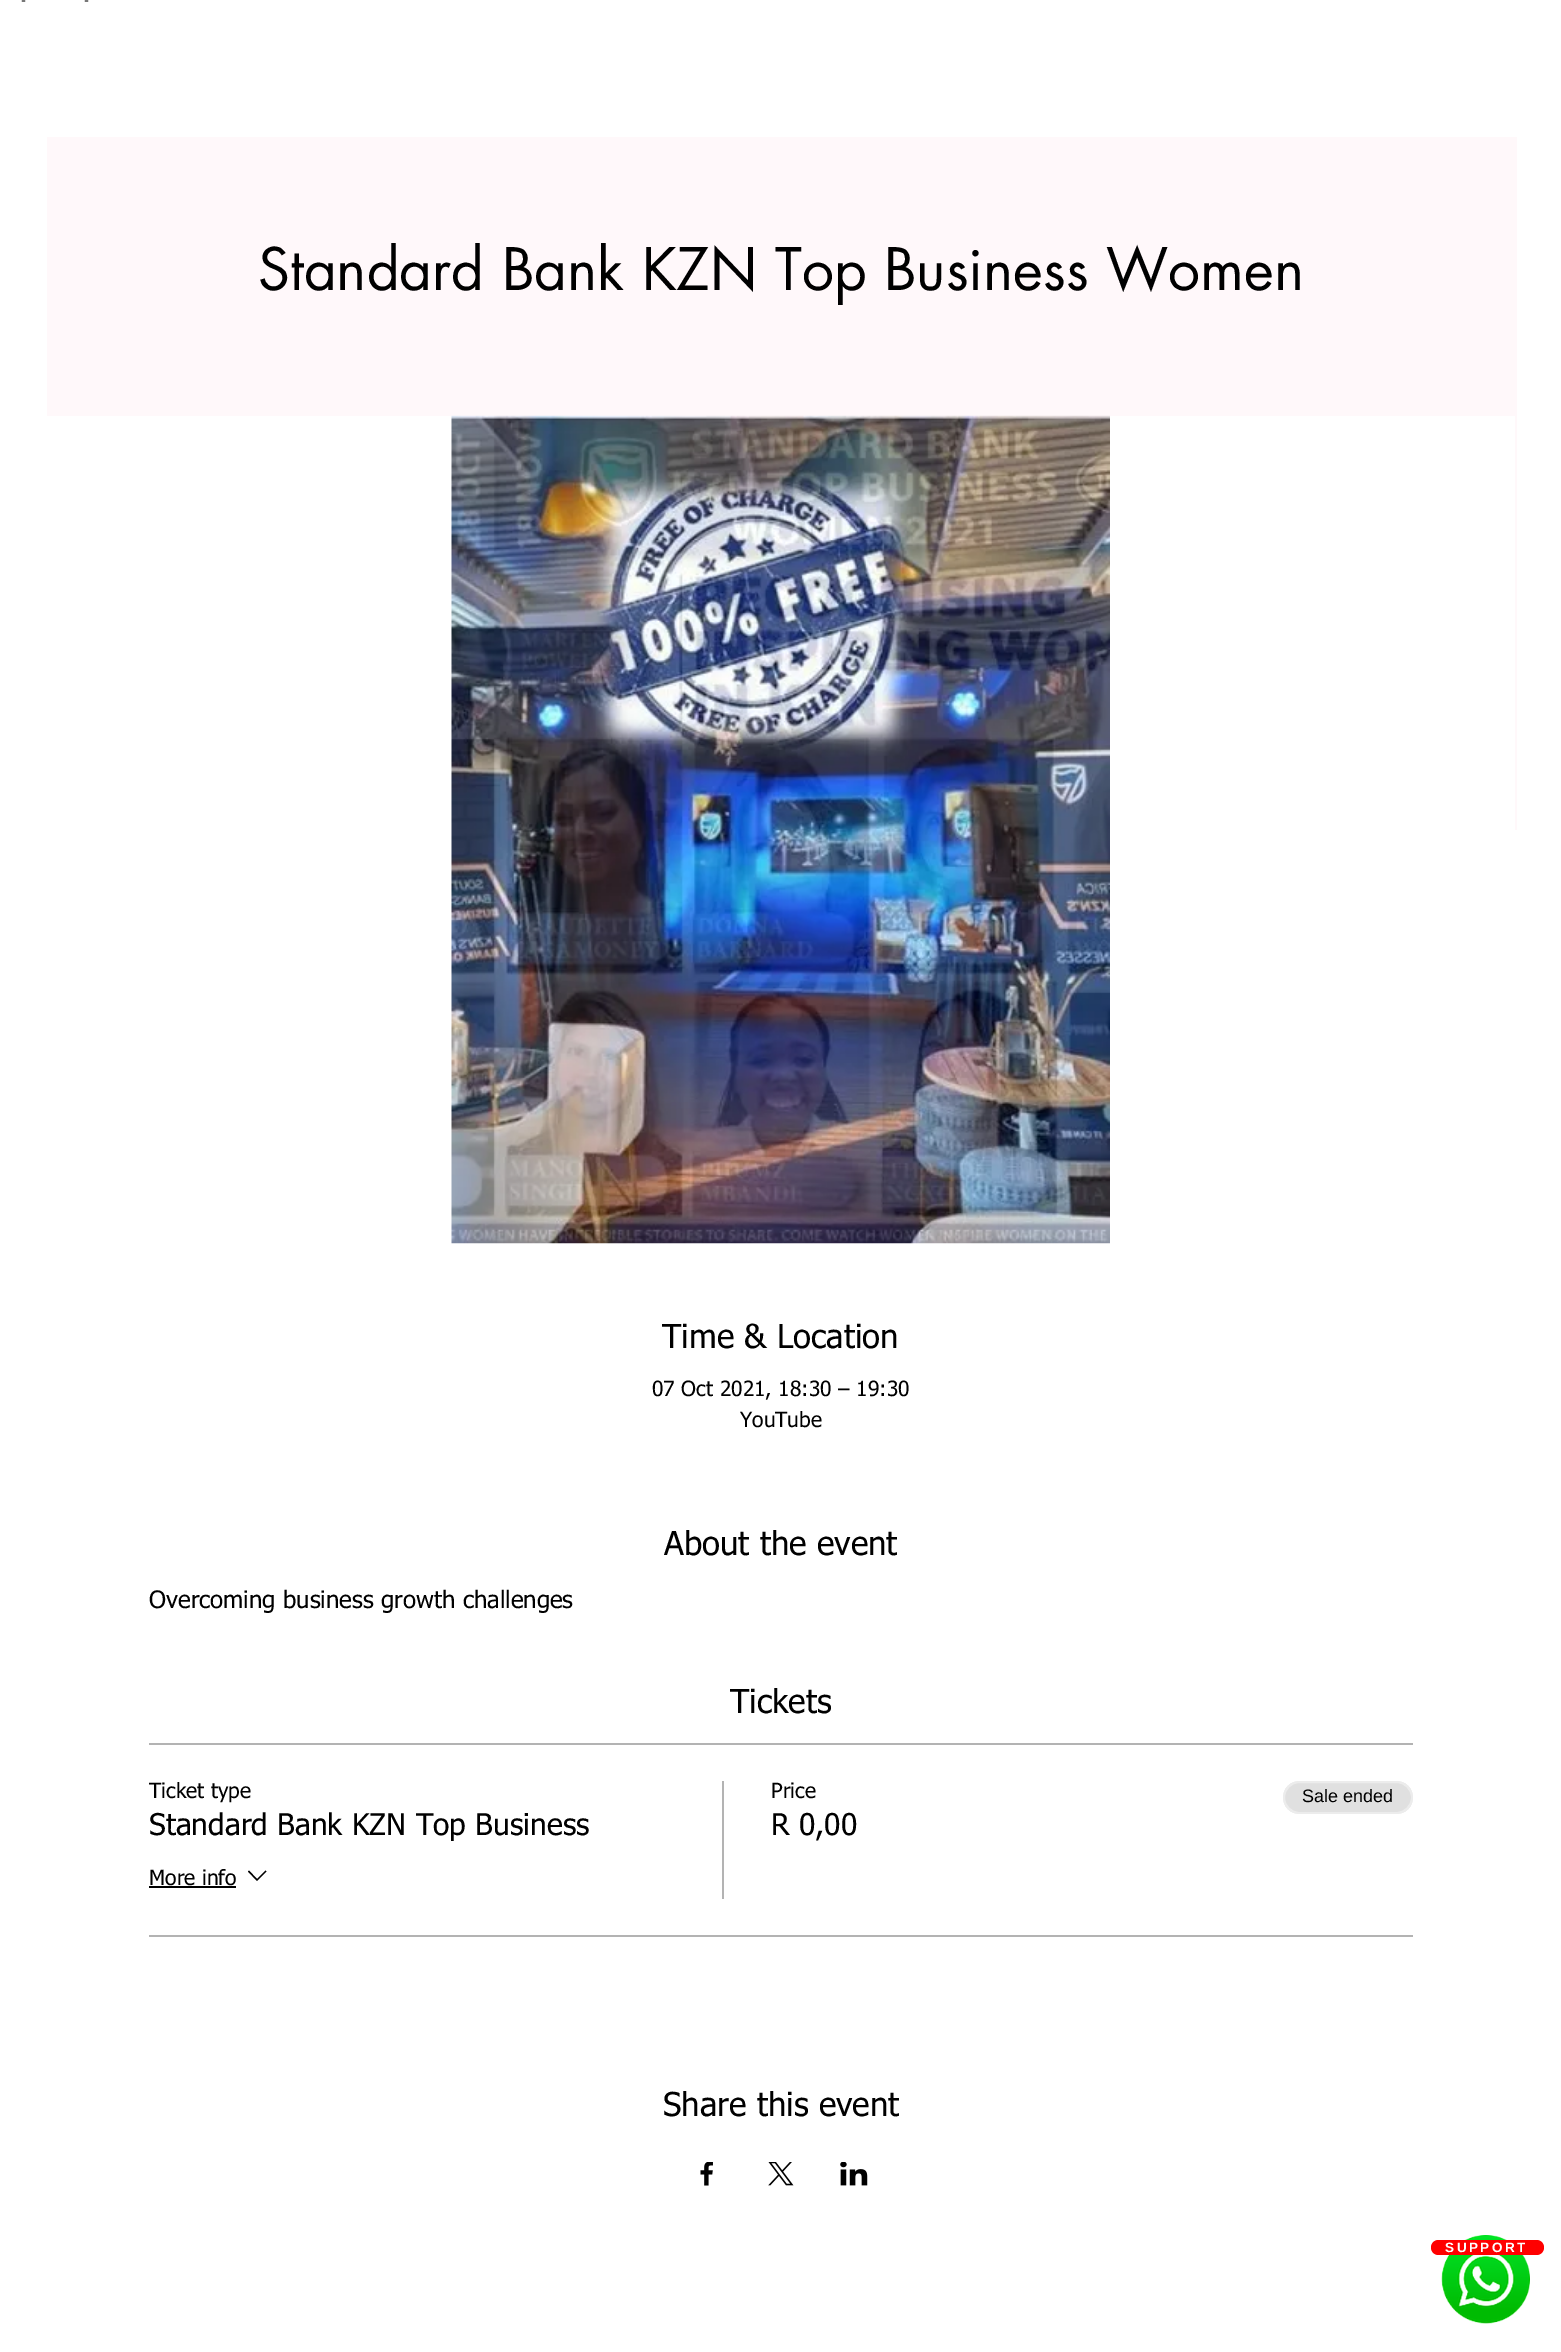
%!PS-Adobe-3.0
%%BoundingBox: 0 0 1561 2352
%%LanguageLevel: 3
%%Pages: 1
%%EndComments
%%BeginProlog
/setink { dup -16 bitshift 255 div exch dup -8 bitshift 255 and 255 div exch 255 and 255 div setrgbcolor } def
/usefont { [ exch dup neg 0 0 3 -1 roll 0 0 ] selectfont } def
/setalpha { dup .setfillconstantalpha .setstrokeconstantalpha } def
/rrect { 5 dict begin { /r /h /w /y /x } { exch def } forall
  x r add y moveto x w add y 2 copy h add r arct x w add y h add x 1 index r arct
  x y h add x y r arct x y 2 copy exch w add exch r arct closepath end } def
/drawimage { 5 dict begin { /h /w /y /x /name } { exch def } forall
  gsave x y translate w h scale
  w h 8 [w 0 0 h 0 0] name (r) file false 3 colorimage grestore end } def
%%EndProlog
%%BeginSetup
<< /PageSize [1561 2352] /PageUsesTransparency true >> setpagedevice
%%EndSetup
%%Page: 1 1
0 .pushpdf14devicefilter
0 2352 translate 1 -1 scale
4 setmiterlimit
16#FFFFFF setink
0 0 1561 2352 rectfill
/LiberationSans-Regular 15 usefont
16#000000 setink
21 5 moveto (-) show
84 5 moveto (-) show
16#FFF8FA setink
47 137 1470 693 rectfill
/futura-Regular 57 usefont
16#000000 setink
258 290 moveto (Standard Bank KZN Top Business Women) show
16#FFFFFF setink
47 416 1468 414 rectfill
(img1.raw) 451 415 659 829 drawimage
/tahoma-Regular 33 usefont
16#000000 setink
662 1348 moveto (Time & Location) show
/tahoma-Regular 21 usefont
652 1396 moveto (07 Oct 2021, 18:30 – 19:30) show
740 1427 moveto (YouTube) show
/tahoma-Regular 33 usefont
664 1555 moveto (About the event) show
/tahoma-Regular 24 usefont
149 1608 moveto (Overcoming business growth challenges) show
/tahoma-Regular 33 usefont
730 1713 moveto (Tickets) show
16#B3B3B3 setink
149 1743 1264 2 rectfill
149 1935 1264 2 rectfill
/tahoma-Regular 21 usefont
16#000000 setink
149 1798 moveto (Ticket type) show
/tahoma-Regular 30 usefont
149 1835 moveto (Standard Bank KZN Top Business) show
/tahoma-Regular 21 usefont
149 1885 moveto (More info) show
149 1886 87 2 rectfill
265.5 1870.5 moveto 266.5 1871.5 lineto 257 1881 lineto 248 1871.5 lineto 249 1870.5 lineto 257 1879 lineto closepath eofill
16#B3B3B3 setink
722 1781 2 118 rectfill
16#000000 setink
771 1798 moveto (Price) show
/tahoma-Regular 30 usefont
771 1835 moveto (R 0,00) show
16#E0E0E0 setink
1283 1781 130 33 16.5 rrect fill
0.4 setalpha
16#FFFFFF setink
2 setlinewidth
1284 1782 128 31 15.5 rrect stroke
/LiberationSans-Regular 18 usefont
1 setalpha
16#000000 setink
1302 1802 moveto (Sale ended) show
/tahoma-Regular 33 usefont
663 2116 moveto (Share this event) show
(img2.raw) 700 2162 13 24 drawimage
(img3.raw) 768 2162 26 24 drawimage
(img4.raw) 840 2162 28 24 drawimage
(img5.raw) 1441 2235 89 89 drawimage
16#FF0000 setink
1431 2240 113 15 7.5 rrect fill
/LiberationSans-Bold 13.5 usefont
16#FFFFFF setink
1445 2252 moveto 2.5 0 (SUPPORT) ashow
.poppdf14devicefilter showpage
%%EOF
